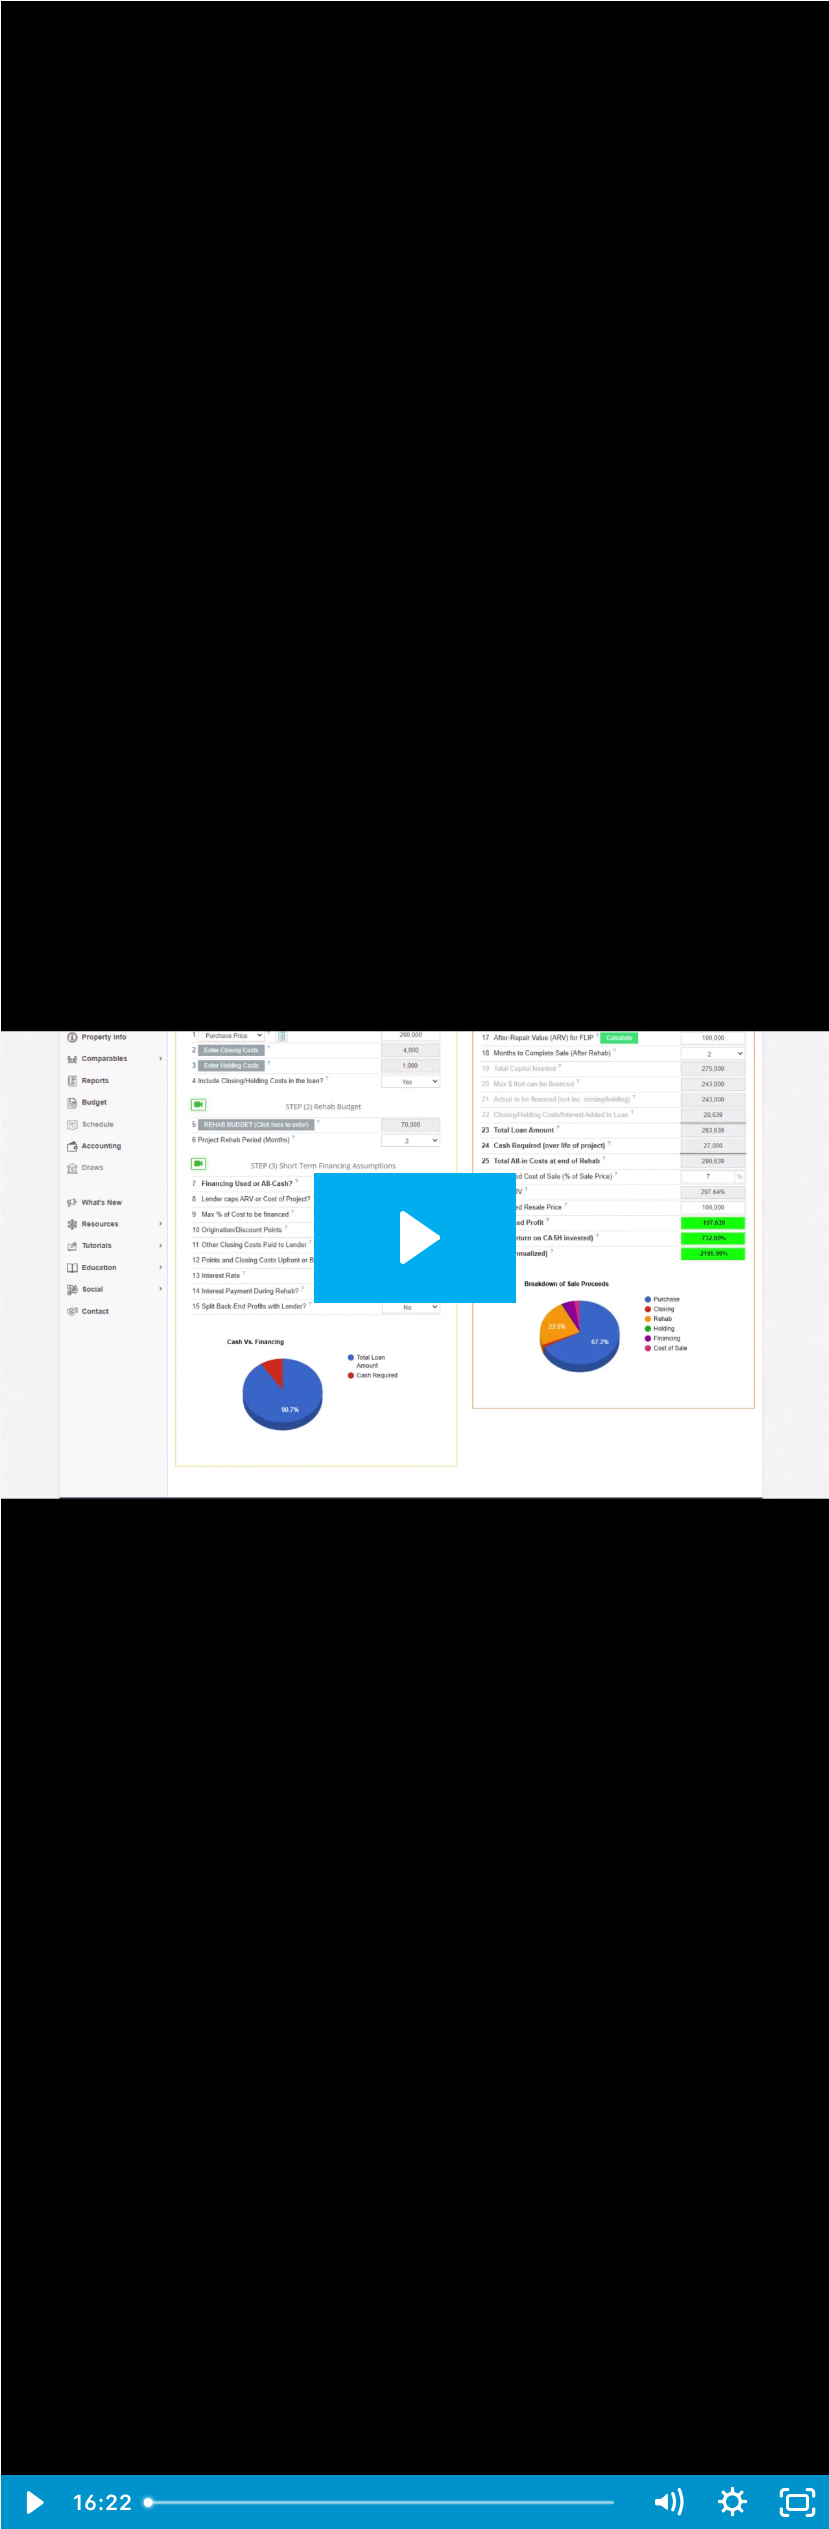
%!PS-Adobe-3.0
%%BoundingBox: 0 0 829 2529
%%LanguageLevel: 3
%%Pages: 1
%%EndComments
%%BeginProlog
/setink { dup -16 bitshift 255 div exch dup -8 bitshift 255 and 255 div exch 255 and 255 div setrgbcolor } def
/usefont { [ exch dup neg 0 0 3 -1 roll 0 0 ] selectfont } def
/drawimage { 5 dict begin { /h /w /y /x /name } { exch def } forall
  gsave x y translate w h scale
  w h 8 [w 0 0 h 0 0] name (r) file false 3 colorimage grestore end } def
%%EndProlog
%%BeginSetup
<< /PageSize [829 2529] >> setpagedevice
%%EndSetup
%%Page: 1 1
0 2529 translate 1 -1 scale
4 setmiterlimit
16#FFFFFF setink
0 0 829 2529 rectfill
(img1.raw) 0 1022 1 482 drawimage
16#000000 setink
1 1 828 2474 rectfill
(img2.raw) 0 1031 829 468 drawimage
16#00ADEF setink
314 1173 202 130 rectfill
16#FFFFFF setink
405 1212 moveto 403 1210 400 1212 400 1214 curveto 400 1261 lineto 400 1263 403 1265 405 1263 curveto 438 1240 lineto 439 1240 440 1239 440 1238 curveto 440 1236 439 1235 438 1235 curveto closepath eofill
16#0093CB setink
1 2475 828 54 rectfill
(img3.raw) 26 2491 18 23 drawimage
/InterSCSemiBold-SemiBold 21 usefont
16#FFFFFF setink
73 2510 moveto 1 0 (16:22) ashow
(img4.raw) 140 2494 475 17 drawimage
(img5.raw) 654 2488 30 28 drawimage
(img6.raw) 717 2486 31 31 drawimage
(img7.raw) 779 2487 37 31 drawimage
showpage
%%EOF
